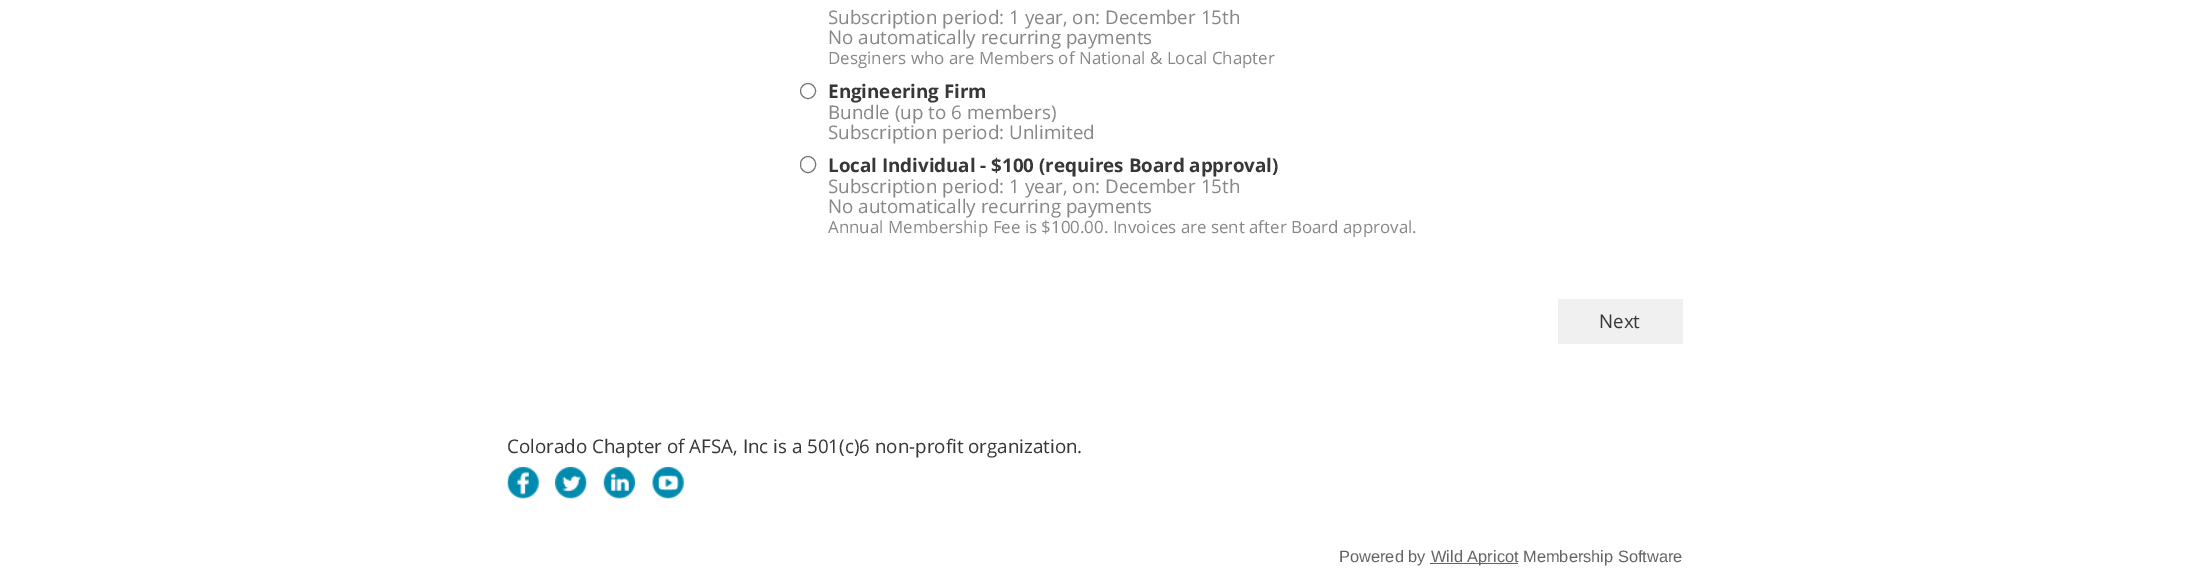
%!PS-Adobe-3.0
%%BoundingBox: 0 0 2188 584
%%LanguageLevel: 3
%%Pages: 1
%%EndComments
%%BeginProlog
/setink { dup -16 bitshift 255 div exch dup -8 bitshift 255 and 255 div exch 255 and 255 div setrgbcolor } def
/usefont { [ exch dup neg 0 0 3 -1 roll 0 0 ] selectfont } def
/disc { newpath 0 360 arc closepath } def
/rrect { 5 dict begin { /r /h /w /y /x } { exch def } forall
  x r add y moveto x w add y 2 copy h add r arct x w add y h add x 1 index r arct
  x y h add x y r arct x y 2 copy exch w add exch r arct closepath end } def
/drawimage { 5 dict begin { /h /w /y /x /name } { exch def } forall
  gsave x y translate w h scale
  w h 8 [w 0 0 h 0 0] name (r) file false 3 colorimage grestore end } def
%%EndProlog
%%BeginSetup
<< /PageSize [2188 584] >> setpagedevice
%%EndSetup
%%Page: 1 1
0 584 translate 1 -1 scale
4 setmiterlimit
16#FFFFFF setink
0 0 2188 584 rectfill
/OpenSans-Regular 18.75 usefont
16#888888 setink
828 24 moveto (Subscription period: 1 year, on: December 15th) show
828 44 moveto (No automatically recurring payments) show
/OpenSans-Regular 16.9 usefont
828 64 moveto (Desginers who are Members of National & Local Chapter) show
16#767676 setink
808 91 7.5 disc stroke
/OpenSans-Bold 18.75 usefont
16#373737 setink
828 98 moveto (Engineering Firm) show
/OpenSans-Regular 18.75 usefont
16#888888 setink
828 119 moveto (Bundle \(up to 6 members\)) show
828 139 moveto (Subscription period: Unlimited) show
16#767676 setink
800.5 156.5 15 16 7.5 rrect stroke
/OpenSans-Bold 18.75 usefont
16#373737 setink
828 172 moveto (Local Individual - $100 \(requires Board approval\)) show
/OpenSans-Regular 18.75 usefont
16#888888 setink
828 193 moveto (Subscription period: 1 year, on: December 15th) show
828 213 moveto (No automatically recurring payments) show
/OpenSans-Regular 16.9 usefont
828 233 moveto (Annual Membership Fee is $100.00. Invoices are sent after Board approval.) show
16#F0F0F0 setink
1558 299 125 45 rectfill
/OpenSans-Regular 18.75 usefont
16#373737 setink
1599 328 moveto (Next) show
507 453 moveto (Colorado Chapter of AFSA, Inc is a 501\(c\)6 non-profit organization.) show
(img1.raw) 507 467 32 32 drawimage
(img2.raw) 555 467 32 32 drawimage
(img3.raw) 603 467 32 32 drawimage
(img4.raw) 652 467 32 32 drawimage
/LiberationSans-Regular 16.4 usefont
16#646464 setink
1339 562 moveto (Powered by) show
1430 563 88 1 rectfill
1431 562 moveto (Wild Apricot Membership Software) show
showpage
%%EOF
